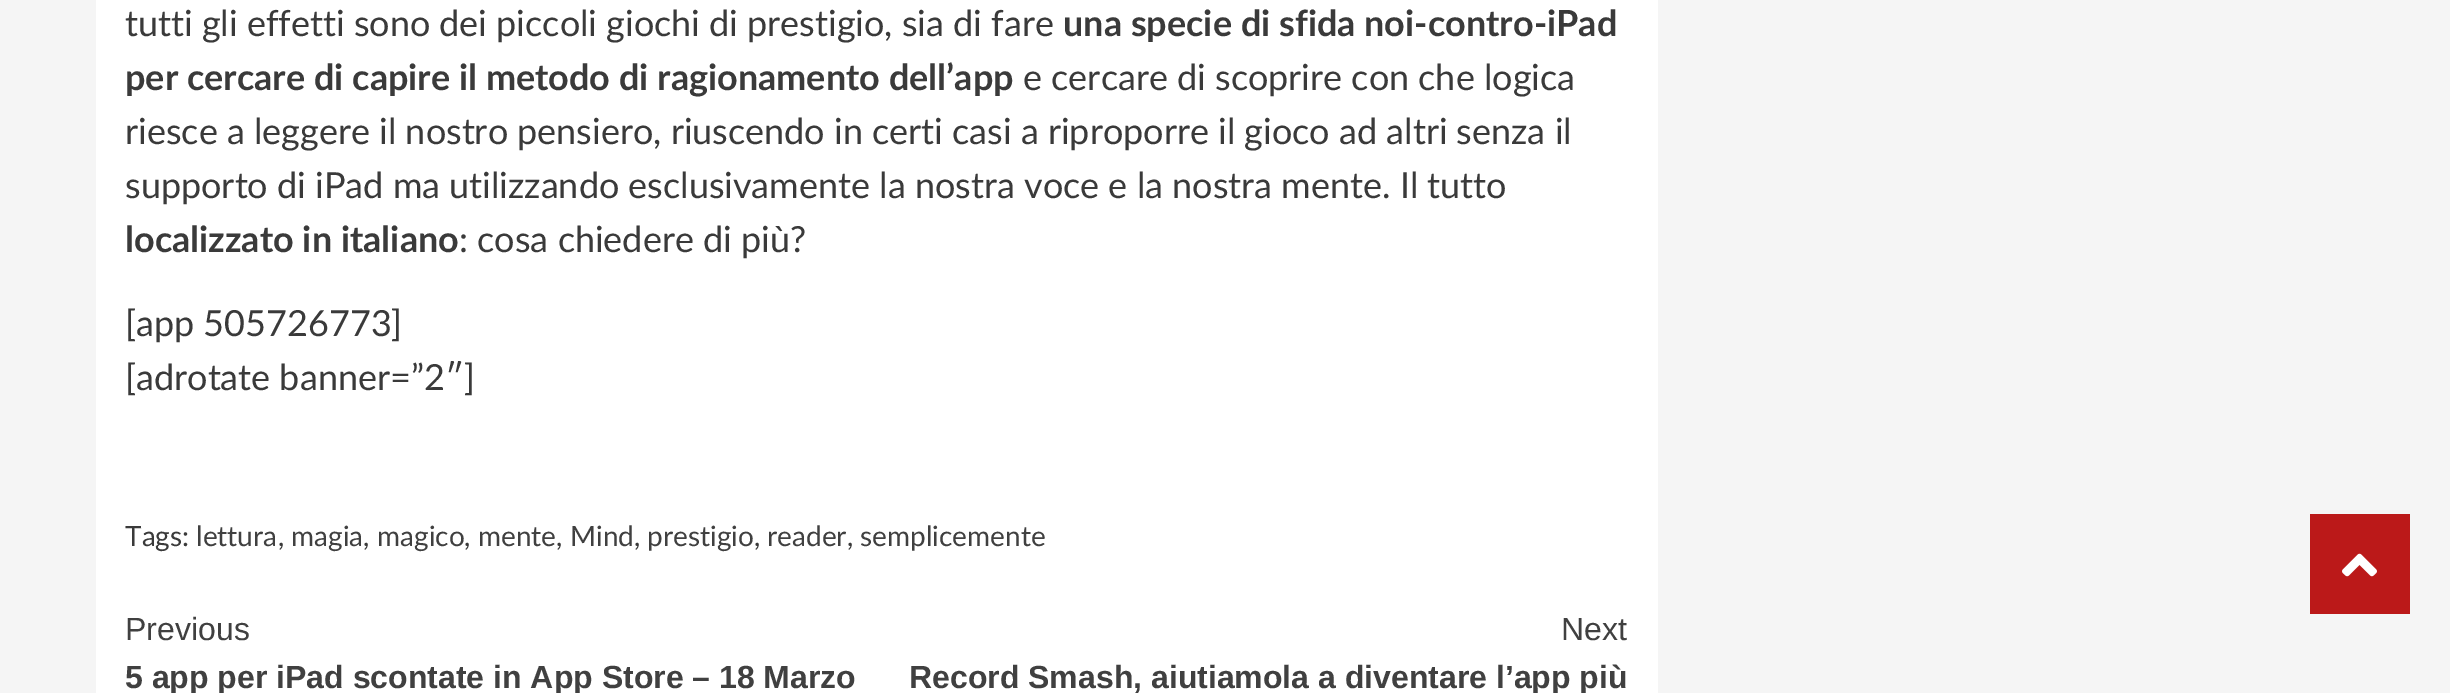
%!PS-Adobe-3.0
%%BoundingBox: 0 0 2450 693
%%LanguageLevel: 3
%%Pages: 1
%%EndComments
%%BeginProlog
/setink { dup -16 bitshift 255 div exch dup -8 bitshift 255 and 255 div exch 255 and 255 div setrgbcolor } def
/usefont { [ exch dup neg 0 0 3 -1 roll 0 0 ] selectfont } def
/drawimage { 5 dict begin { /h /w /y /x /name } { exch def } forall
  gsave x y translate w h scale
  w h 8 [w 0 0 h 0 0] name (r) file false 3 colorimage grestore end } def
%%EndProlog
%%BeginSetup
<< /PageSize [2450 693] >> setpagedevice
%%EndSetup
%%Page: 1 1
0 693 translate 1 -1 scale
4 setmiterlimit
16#F5F5F5 setink
0 0 2450 693 rectfill
16#FFFFFF setink
96 0 1562 693 rectfill
/Lato-Regular 36 usefont
16#3A3A3A setink
125 36 moveto (tutti gli effetti sono dei piccoli giochi di prestigio, sia di fare) show
/Lato-Bold 36 usefont
1063 36 moveto (una specie di sfida noi-contro-iPad) show
125 90 moveto (per cercare di capire il metodo di ragionamento dell’app) show
/Lato-Regular 36 usefont
[
    [(e cercare di scoprire con che logica) 1023 90]
    [(riesce a leggere il nostro pensiero, riuscendo in certi casi a riproporre il gioco ad altri senza il) 125 144]
    [(supporto di iPad ma utilizzando esclusivamente la nostra voce e la nostra mente. Il tutto) 125 198]
] { aload pop moveto show } forall
/Lato-Bold 36 usefont
125 252 moveto (localizzato in italiano) show
/Lato-Regular 36 usefont
[
    [(: cosa chiedere di più?) 459 252]
    [([app 505726773]) 125 336]
    [([adrotate banner=”2″]) 125 390]
] { aload pop moveto show } forall
/Lato-Regular 28 usefont
125 546 moveto (Tags:) show
16#404040 setink
196 546 moveto (lettura) show
16#3A3A3A setink
278 546 moveto (,) show
16#404040 setink
291 546 moveto (magia) show
16#3A3A3A setink
363 546 moveto (,) show
16#404040 setink
377 546 moveto (magico) show
16#3A3A3A setink
464 546 moveto (,) show
16#404040 setink
478 546 moveto (mente) show
16#3A3A3A setink
556 546 moveto (,) show
16#404040 setink
570 546 moveto (Mind) show
16#3A3A3A setink
634 546 moveto (,) show
16#404040 setink
647 546 moveto (prestigio) show
16#3A3A3A setink
754 546 moveto (,) show
16#404040 setink
767 546 moveto (reader) show
16#3A3A3A setink
847 546 moveto (,) show
16#404040 setink
860 546 moveto (semplicemente) show
/LiberationSans-Regular 32 usefont
125 640 moveto (Previous) show
/LiberationSans-Bold 32 usefont
125 688 moveto (5 app per iPad scontate in App Store – 18 Marzo) show
/LiberationSans-Regular 32 usefont
1561 640 moveto (Next) show
/LiberationSans-Bold 32 usefont
909 688 moveto (Record Smash, aiutiamola a diventare l’app più) show
16#BB1919 setink
2310 514 100 100 rectfill
(img1.raw) 2342 553 35 24 drawimage
showpage
%%EOF
